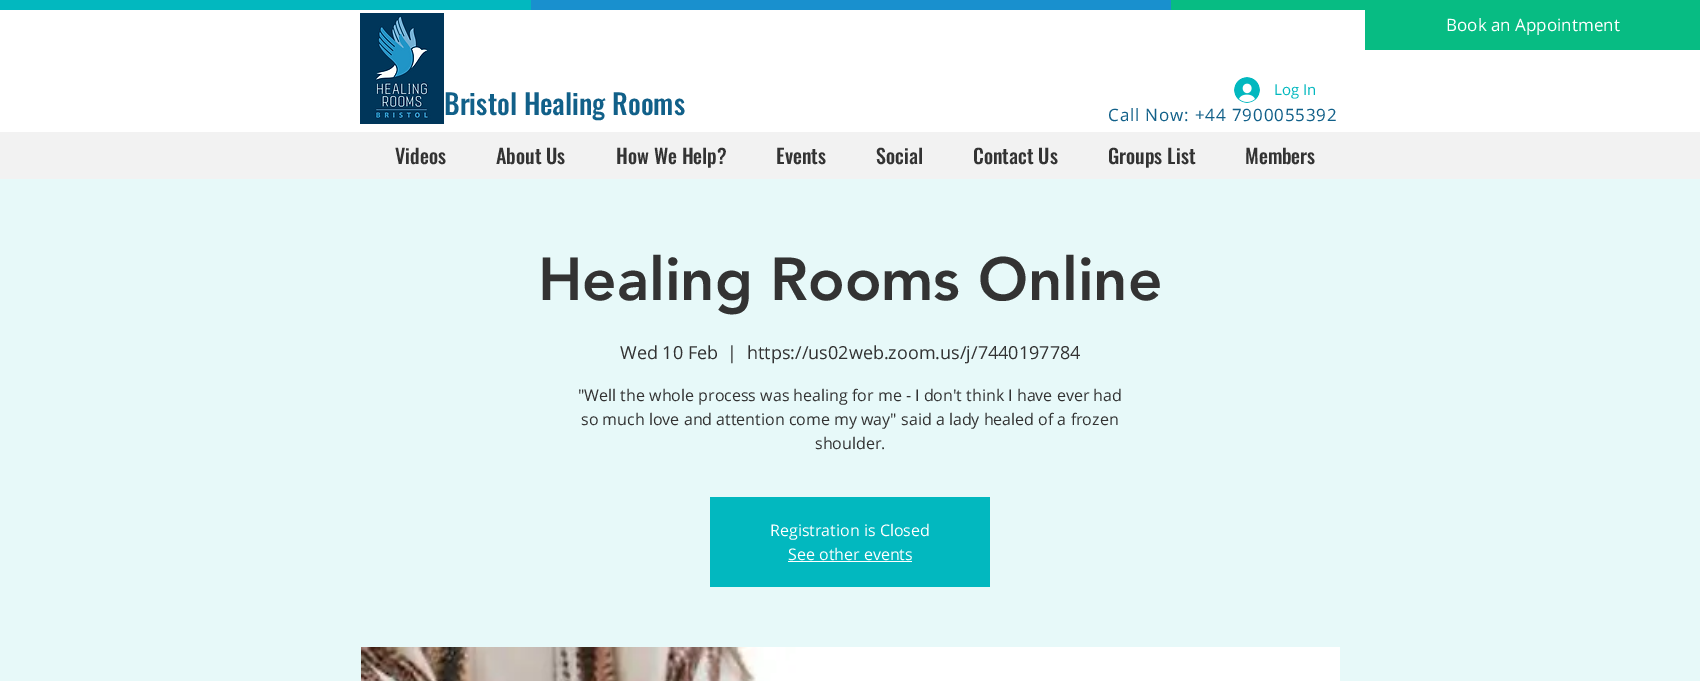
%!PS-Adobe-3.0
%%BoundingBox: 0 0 1700 681
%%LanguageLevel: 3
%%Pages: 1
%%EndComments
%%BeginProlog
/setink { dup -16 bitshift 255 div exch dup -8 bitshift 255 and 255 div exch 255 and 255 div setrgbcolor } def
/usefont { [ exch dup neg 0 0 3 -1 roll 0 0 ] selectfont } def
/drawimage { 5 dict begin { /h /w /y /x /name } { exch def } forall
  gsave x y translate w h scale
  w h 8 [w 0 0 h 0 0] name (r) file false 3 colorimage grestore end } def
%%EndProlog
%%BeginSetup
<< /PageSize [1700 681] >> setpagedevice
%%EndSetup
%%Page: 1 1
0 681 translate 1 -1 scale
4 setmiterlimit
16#FFFFFF setink
0 0 1700 681 rectfill
16#07BC83 setink
1365 0 335 50 rectfill
/OpenSans-Regular 17 usefont
16#FFFFFF setink
1446 31 moveto (Book an Appointment) show
[
    [0 0 531 10 16#02B8BF]
    [531 0 640 10 16#1990CE]
    [1171 0 194 10 16#07BC83]
] { aload pop setink rectfill } forall
(img1.raw) 360 13 84 111 drawimage
/Oswald-Medium 28 usefont
16#116089 setink
444 115 moveto (Bristol Healing Rooms) show
(img2.raw) 1234 77 26 26 drawimage
/OpenSans-Regular 15 usefont
16#02B8BF setink
1274 95 moveto (Log In) show
/OpenSans-Regular 17 usefont
16#116089 setink
1108 121 moveto 0.85 0 (Call Now: +44 7900055392) ashow
16#F2F2F2 setink
0 132 1700 47 rectfill
/Oswald-Medium 20 usefont
16#333333 setink
[
    [(Videos) 395 164]
    [(About Us) 496 164]
    [(How We Help?) 616 164]
    [(Events) 776 164]
    [(Social) 876 164]
    [(Contact Us) 973 164]
    [(Groups List) 1108 164]
    [(Members) 1245 164]
] { aload pop moveto show } forall
16#E7F9F9 setink
0 179 1700 502 rectfill
/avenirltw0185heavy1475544-Black 60 usefont
16#333333 setink
538 300 moveto (Healing Rooms Online) show
/OpenSans-Regular 18 usefont
[
    [(Wed 10 Feb) 620 359]
    [(|) 727 359]
    [(https://us02web.zoom.us/j/7440197784) 747 359]
] { aload pop moveto show } forall
/OpenSans-Regular 16 usefont
[
    [("Well the whole process was healing for me - I don't think I have ever had) 578 401]
    [(so much love and attention come my way" said a lady healed of a frozen) 581 425]
    [(shoulder.) 815 449]
] { aload pop moveto show } forall
16#02B8BF setink
710 497 280 90 rectfill
16#FFFFFF setink
770 536 moveto (Registration is Closed) show
788 560 moveto (See other events) show
788 561 124 1 rectfill
(img3.raw) 361 647 979 34 drawimage
showpage
%%EOF
